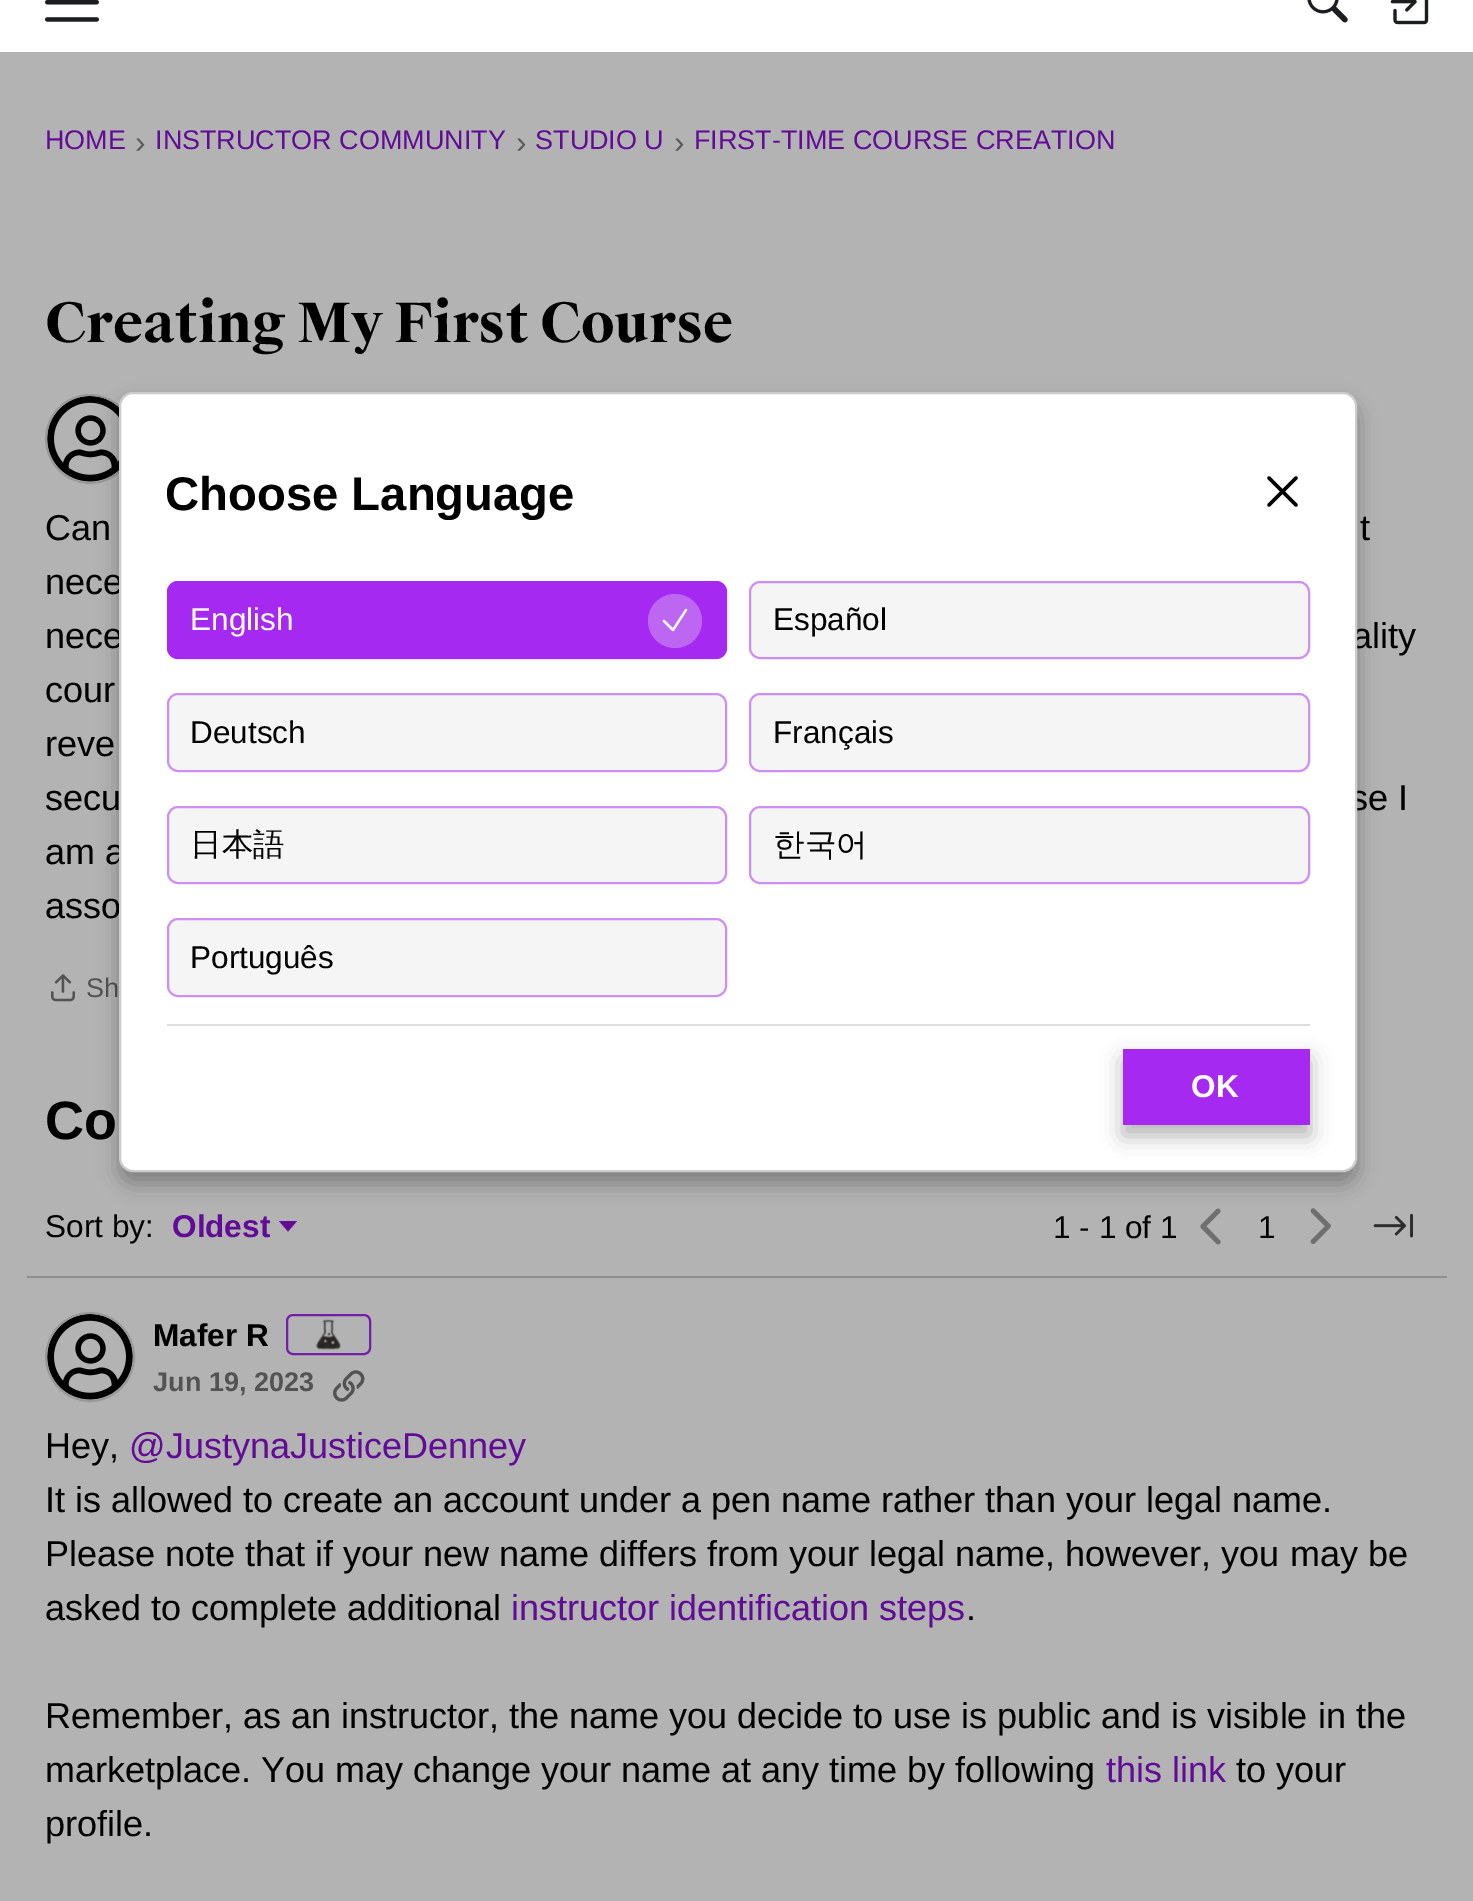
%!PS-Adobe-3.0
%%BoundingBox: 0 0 1473 1901
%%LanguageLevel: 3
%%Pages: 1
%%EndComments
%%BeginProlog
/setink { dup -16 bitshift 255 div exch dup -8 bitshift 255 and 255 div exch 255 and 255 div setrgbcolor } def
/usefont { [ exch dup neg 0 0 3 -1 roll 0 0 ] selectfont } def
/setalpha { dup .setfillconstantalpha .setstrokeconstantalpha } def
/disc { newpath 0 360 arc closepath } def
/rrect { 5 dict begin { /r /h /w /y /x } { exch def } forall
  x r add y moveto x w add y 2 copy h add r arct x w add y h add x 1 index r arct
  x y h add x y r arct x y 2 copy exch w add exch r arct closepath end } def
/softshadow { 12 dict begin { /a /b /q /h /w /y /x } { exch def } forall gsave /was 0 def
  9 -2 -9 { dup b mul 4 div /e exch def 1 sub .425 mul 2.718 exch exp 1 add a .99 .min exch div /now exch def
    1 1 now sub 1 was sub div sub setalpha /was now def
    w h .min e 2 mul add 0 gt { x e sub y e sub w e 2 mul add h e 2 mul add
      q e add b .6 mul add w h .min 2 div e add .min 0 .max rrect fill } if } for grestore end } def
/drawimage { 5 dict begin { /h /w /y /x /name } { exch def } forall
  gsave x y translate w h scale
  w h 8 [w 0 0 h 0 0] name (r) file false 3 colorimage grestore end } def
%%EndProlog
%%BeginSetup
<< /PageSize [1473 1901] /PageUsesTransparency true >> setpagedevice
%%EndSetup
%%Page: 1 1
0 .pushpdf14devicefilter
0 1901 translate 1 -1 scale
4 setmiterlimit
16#B3B3B3 setink
0 0 1473 1901 rectfill
16#FFFFFF setink
0 0 1473 52 rectfill
(img1.raw) 45 0 54 22 drawimage
(img2.raw) 1307 0 41 23 drawimage
(img3.raw) 1390 0 39 25 drawimage
/LiberationSans-Regular 27 usefont
16#610B96 setink
45 149 moveto (HOME) show
/LiberationSans-Regular 31.5 usefont
16#5A5A5A setink
135 153 moveto (›) show
/LiberationSans-Regular 27 usefont
16#610B96 setink
155 149 moveto (INSTRUCTOR COMMUNITY) show
/LiberationSans-Regular 31.5 usefont
16#5A5A5A setink
516 153 moveto (›) show
/LiberationSans-Regular 27 usefont
16#610B96 setink
535 149 moveto (STUDIO U) show
/LiberationSans-Regular 31.5 usefont
16#5A5A5A setink
674 153 moveto (›) show
/LiberationSans-Regular 27 usefont
16#610B96 setink
694 149 moveto (FIRST-TIME COURSE CREATION) show
/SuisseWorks-Bold 54 usefont
16#000000 setink
45 342 moveto (Creating My First Course) show
16#989898 setink
2 setlinewidth
90 439 44 disc stroke
(img4.raw) 47 396 72 86 drawimage
/LiberationSans-Regular 36 usefont
16#000000 setink
[
    [(Can) 45 540]
    [(t) 1360 540]
    [(nece) 45 594]
    [(nece) 45 648]
    [(ality) 1352 648]
    [(cour) 45 702]
    [(reve) 45 756]
    [(secu) 45 810]
    [(se I) 1350 810]
    [(am a) 45 864]
    [(asso) 45 918]
] { aload pop moveto show } forall
(img5.raw) 51 974 24 28 drawimage
/LiberationSans-Regular 27 usefont
16#535353 setink
86 997 moveto (Sh) show
/LiberationSans-Bold 54 usefont
16#000000 setink
45 1139 moveto (Co) show
/LiberationSans-Regular 31.5 usefont
45 1237 moveto (Sort by:) show
/LiberationSans-Bold 31.5 usefont
16#610B96 setink
172 1237 moveto (Oldest) show
279 1221 moveto 297 1221 lineto 288 1231.5 lineto closepath fill
/LiberationSans-Regular 31.5 usefont
16#000000 setink
1053 1238 moveto (1 - 1 of 1) show
(img6.raw) 1200 1208 21 37 drawimage
1258 1238 moveto (1) show
(img7.raw) 1310 1208 21 36 drawimage
(img8.raw) 1373 1213 40 25 drawimage
16#8F8F8F setink
27 1276 1420 2 rectfill
16#989898 setink
90 1357 44 disc stroke
(img9.raw) 47 1314 86 86 drawimage
/LiberationSans-Bold 31.5 usefont
16#000000 setink
153 1346 moveto (Mafer R) show
16#731DA8 setink
287 1315 83 39 6 rrect stroke
(img10.raw) 315 1319 26 31 drawimage
/LiberationSans-Bold 27 usefont
16#535353 setink
153 1391 moveto (Jun 19, 2023) show
(img11.raw) 333 1370 32 32 drawimage
/LiberationSans-Regular 36 usefont
16#000000 setink
45 1458 moveto (Hey,) show
16#610B96 setink
129 1458 moveto (@JustynaJusticeDenney) show
16#000000 setink
[
    [(It is allowed to create an account under a pen name rather than your legal name.) 45 1512]
    [(Please note that if your new name differs from your legal name, however, you may be) 45 1566]
    [(asked to complete additional) 45 1620]
] { aload pop moveto show } forall
16#610B96 setink
511 1620 moveto (instructor identification steps) show
16#000000 setink
[
    [(.) 966 1620]
    [(Remember, as an instructor, the name you decide to use is public and is visible in the) 45 1728]
    [(marketplace. You may change your name at any time by following) 45 1782]
] { aload pop moveto show } forall
16#610B96 setink
1106 1782 moveto (this link) show
16#000000 setink
1236 1782 moveto (to your) show
45 1836 moveto (profile.) show
119 403 1238 781 14 11 0.3 softshadow
16#FFFFFF setink
120 393 1236 778 13 rrect gsave fill grestore
16#CCCCCC setink
stroke
/LiberationSans-Bold 47.25 usefont
16#000000 setink
165 510 moveto (Choose Language) show
3.4 setlinewidth
1 setlinecap
1 setlinejoin
1269 505 moveto 1296 478 lineto 1269 478 moveto 1296 505 lineto stroke
16#A529F0 setink
167 581 560 78 11 rrect fill
0.5 setalpha
2 setlinewidth
0 setlinecap
0 setlinejoin
168 582 558 76 10 rrect stroke
/LiberationSans-Regular 31.5 usefont
1 setalpha
16#FFFFFF setink
190 630 moveto (English) show
16#BC66F1 setink
675 621 27 disc fill
16#FFFFFF setink
2.2 setlinewidth
1 setlinecap
1 setlinejoin
664 621 moveto 673 630 lineto 686 610 lineto stroke
16#F5F5F6 setink
749 581 561 78 11 rrect fill
0.5 setalpha
16#A529F0 setink
2 setlinewidth
0 setlinecap
0 setlinejoin
750 582 559 76 10 rrect stroke
1 setalpha
16#000000 setink
773 630 moveto (Español) show
16#F5F5F6 setink
167 693 560 79 11 rrect fill
0.5 setalpha
16#A529F0 setink
168 694 558 77 10 rrect stroke
1 setalpha
16#000000 setink
190 743 moveto (Deutsch) show
16#F5F5F6 setink
749 693 561 79 11 rrect fill
0.5 setalpha
16#A529F0 setink
750 694 559 77 10 rrect stroke
1 setalpha
16#000000 setink
773 743 moveto (Français) show
16#F5F5F6 setink
167 806 560 78 11 rrect fill
0.5 setalpha
16#A529F0 setink
168 807 558 76 10 rrect stroke
/WenQuanYiZenHei-Medium 31.5 usefont
1 setalpha
16#000000 setink
190 855 moveto (日本語) show
16#F5F5F6 setink
749 806 561 78 11 rrect fill
0.5 setalpha
16#A529F0 setink
750 807 559 76 10 rrect stroke
1 setalpha
16#000000 setink
773 855 moveto (한국어) show
16#F5F5F6 setink
167 918 560 79 11 rrect fill
0.5 setalpha
16#A529F0 setink
168 919 558 77 10 rrect stroke
/LiberationSans-Regular 31.5 usefont
1 setalpha
16#000000 setink
190 968 moveto (Português) show
16#DDDDDD setink
167 1024 1143 2 rectfill
16#000000 setink
1123 1060 187 76 0 11 0.3 softshadow
16#A529F0 setink
1123 1049 187 76 rectfill
/LiberationSans-Bold 31.5 usefont
16#FFFFFF setink
1191 1097 moveto (OK) show
.poppdf14devicefilter showpage
%%EOF
